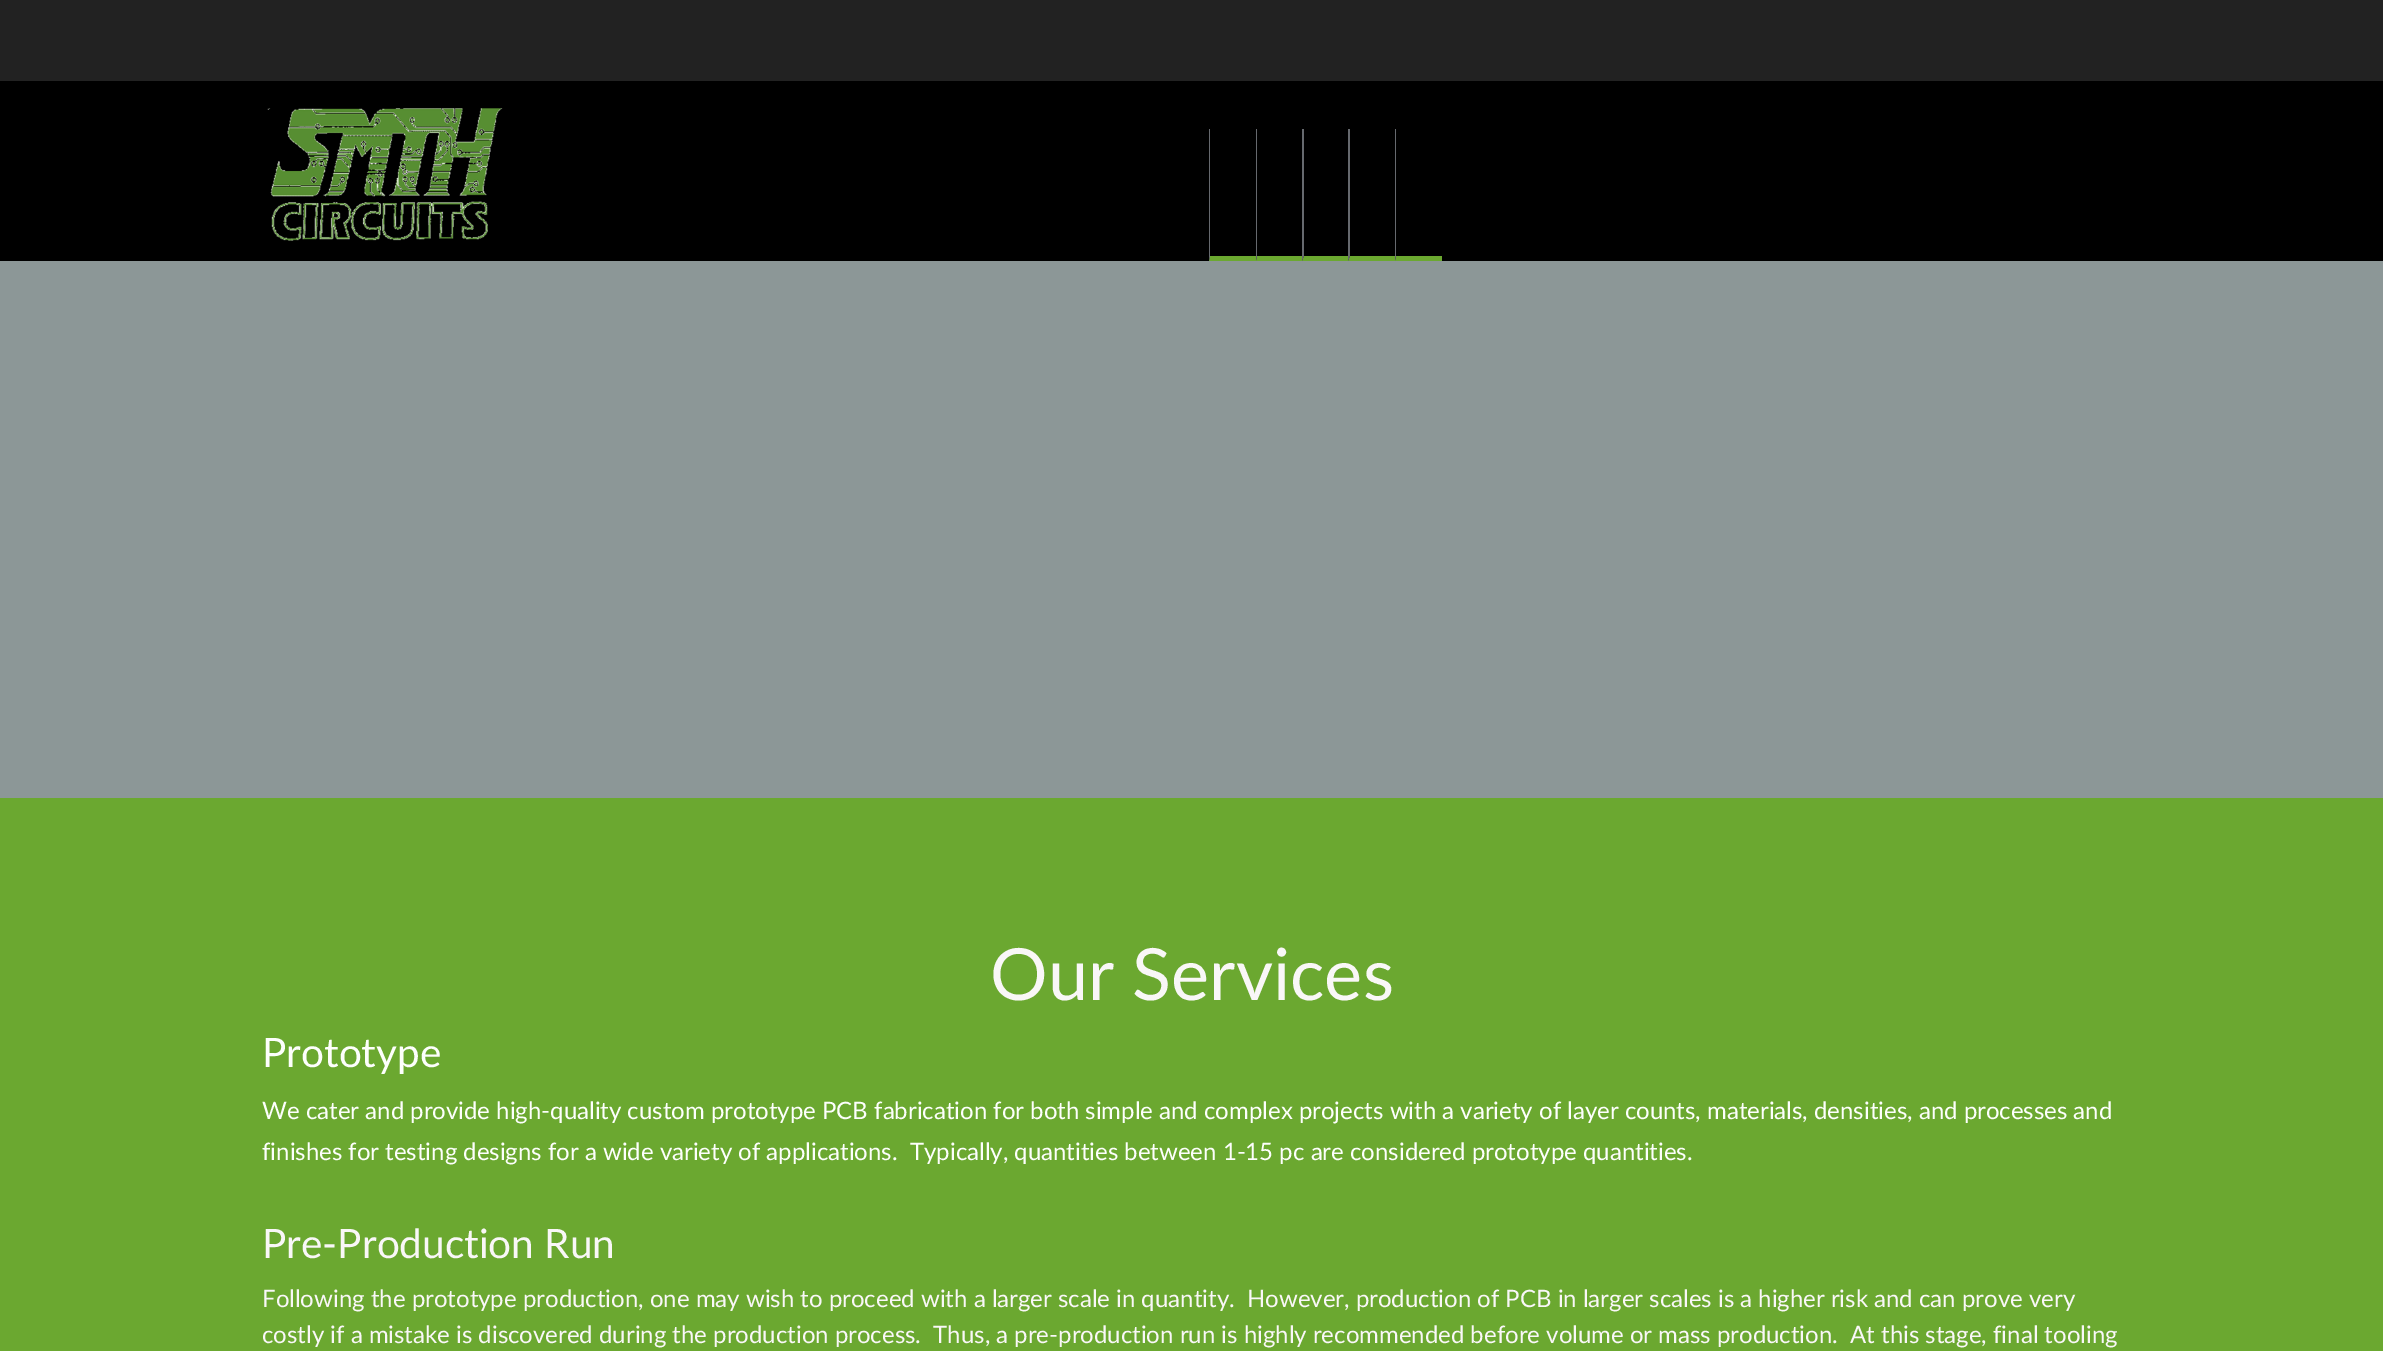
%!PS-Adobe-3.0
%%BoundingBox: 0 0 2383 1351
%%LanguageLevel: 3
%%Pages: 1
%%EndComments
%%BeginProlog
/setink { dup -16 bitshift 255 div exch dup -8 bitshift 255 and 255 div exch 255 and 255 div setrgbcolor } def
/usefont { [ exch dup neg 0 0 3 -1 roll 0 0 ] selectfont } def
/drawimage { 5 dict begin { /h /w /y /x /name } { exch def } forall
  gsave x y translate w h scale
  w h 8 [w 0 0 h 0 0] name (r) file false 3 colorimage grestore end } def
%%EndProlog
%%BeginSetup
<< /PageSize [2383 1351] >> setpagedevice
%%EndSetup
%%Page: 1 1
0 1351 translate 1 -1 scale
4 setmiterlimit
16#222222 setink
0 0 2383 1351 rectfill
16#000000 setink
0 81 2383 180 rectfill
(img1.raw) 267 108 236 133 drawimage
16#6BA830 setink
1256 261 moveto 1209 261 lineto 1210 256 lineto 1256 256 lineto closepath fill
16#66696E setink
1209 261 moveto 1209 129 lineto 1210 129 lineto 1210 256 lineto closepath fill
16#6BA830 setink
1302 261 moveto 1256 261 lineto 1257 256 lineto 1302 256 lineto closepath fill
16#66696E setink
1256 261 moveto 1256 129 lineto 1257 129 lineto 1257 256 lineto closepath fill
16#6BA830 setink
1348 261 moveto 1302 261 lineto 1304 256 lineto 1348 256 lineto closepath fill
16#66696E setink
1302 261 moveto 1302 129 lineto 1304 129 lineto 1304 256 lineto closepath fill
16#6BA830 setink
1395 261 moveto 1348 261 lineto 1350 256 lineto 1395 256 lineto closepath fill
16#66696E setink
1348 261 moveto 1348 129 lineto 1350 129 lineto 1350 256 lineto closepath fill
16#6BA830 setink
1442 261 moveto 1395 261 lineto 1396 256 lineto 1442 256 lineto closepath fill
16#66696E setink
1395 261 moveto 1395 129 lineto 1396 129 lineto 1396 256 lineto closepath fill
16#8C9797 setink
0 261 2383 537 rectfill
16#6BA830 setink
0 798 2383 553 rectfill
/Lato-Regular 72 usefont
16#F9F7F7 setink
990 1000 moveto (Our Services) show
/Lato-Regular 40.5 usefont
16#FDFFFC setink
262 1067 moveto (Prototype) show
/Lato-Regular 24 usefont
262 1119 moveto (We cater and provide high-quality custom prototype PCB fabrication for both simple and complex projects with a variety of layer counts, materials, densities, and processes and) show
262 1160 moveto (finishes for testing designs for a wide variety of applications.  Typically, quantities between 1-15 pc are considered prototype quantities.) show
/Lato-Regular 40.5 usefont
16#F9F7F7 setink
262 1258 moveto (Pre-Production Run) show
/Lato-Regular 24 usefont
262 1307 moveto (Following the prototype production, one may wish to proceed with a larger scale in quantity.  However, production of PCB in larger scales is a higher risk and can prove very) show
262 1343 moveto (costly if a mistake is discovered during the production process.  Thus, a pre-production run is highly recommended before volume or mass production.  At this stage, final tooling) show
showpage
%%EOF
